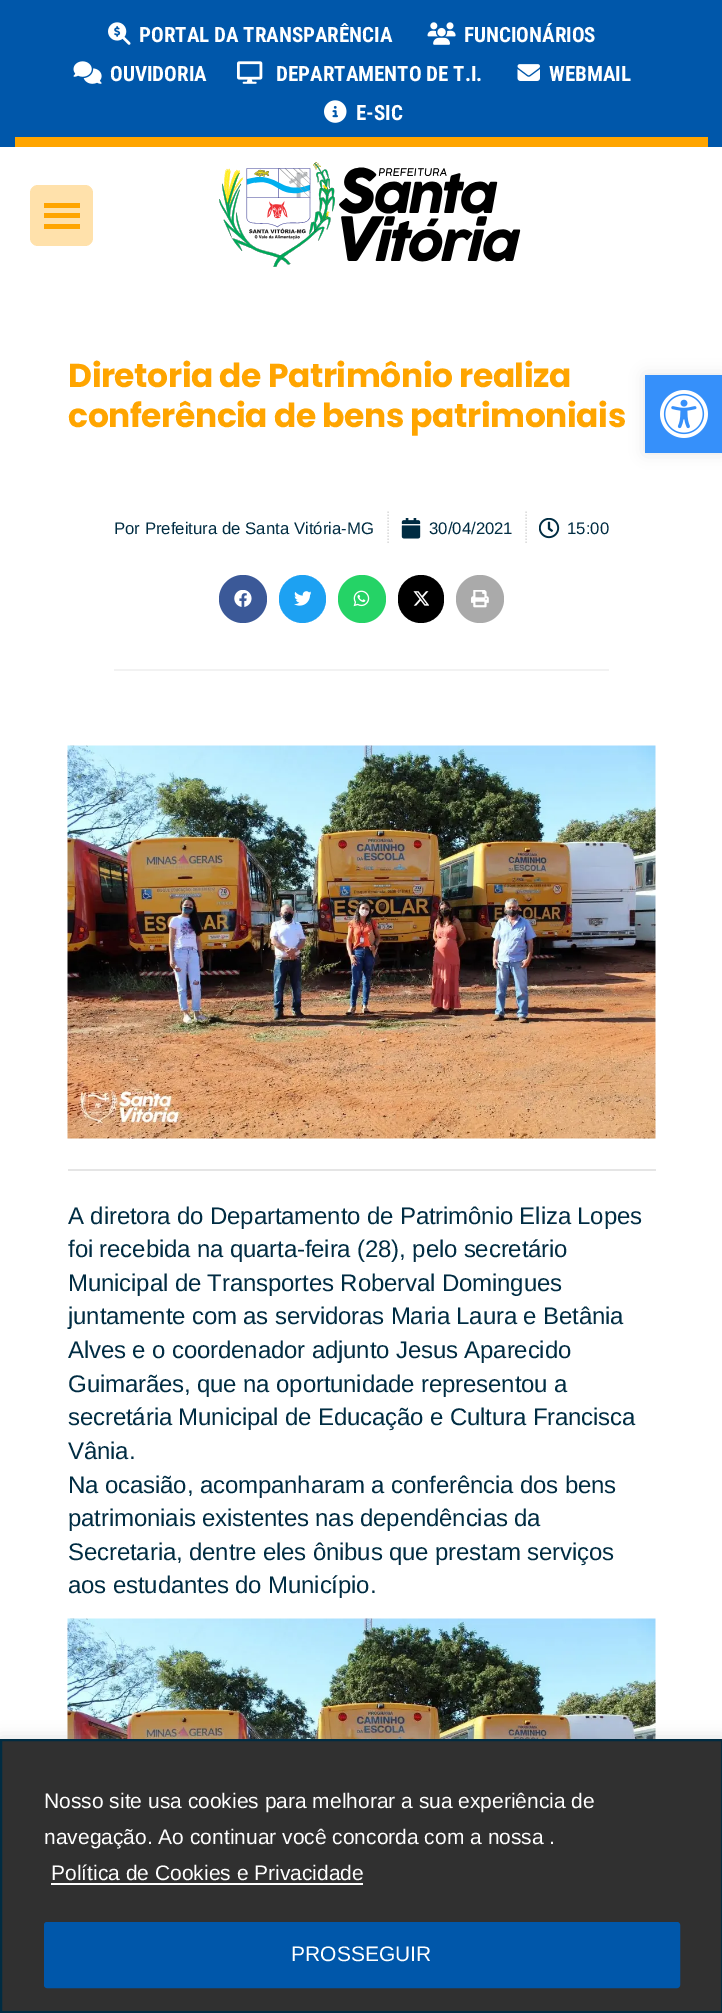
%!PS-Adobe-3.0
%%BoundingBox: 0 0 722 2013
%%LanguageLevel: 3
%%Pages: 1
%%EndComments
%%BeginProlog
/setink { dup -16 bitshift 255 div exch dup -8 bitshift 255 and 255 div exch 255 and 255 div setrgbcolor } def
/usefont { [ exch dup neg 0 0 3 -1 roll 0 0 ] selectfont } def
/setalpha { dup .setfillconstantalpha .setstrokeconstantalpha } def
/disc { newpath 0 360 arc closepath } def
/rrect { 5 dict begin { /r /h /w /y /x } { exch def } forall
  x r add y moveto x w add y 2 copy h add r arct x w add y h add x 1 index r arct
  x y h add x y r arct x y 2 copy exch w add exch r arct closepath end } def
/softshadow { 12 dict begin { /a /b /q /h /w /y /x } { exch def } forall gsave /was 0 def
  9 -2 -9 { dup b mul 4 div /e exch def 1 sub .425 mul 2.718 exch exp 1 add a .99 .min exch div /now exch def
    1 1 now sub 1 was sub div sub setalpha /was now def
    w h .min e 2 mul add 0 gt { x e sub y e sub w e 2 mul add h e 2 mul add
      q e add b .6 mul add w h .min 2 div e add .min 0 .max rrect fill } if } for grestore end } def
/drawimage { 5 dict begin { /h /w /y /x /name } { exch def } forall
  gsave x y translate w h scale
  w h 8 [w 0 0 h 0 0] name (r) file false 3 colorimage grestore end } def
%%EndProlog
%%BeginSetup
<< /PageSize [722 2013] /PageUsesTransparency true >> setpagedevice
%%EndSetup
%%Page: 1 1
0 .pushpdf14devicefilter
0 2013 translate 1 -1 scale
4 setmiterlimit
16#FFFFFF setink
0 0 722 2013 rectfill
16#0057AA setink
0 0 722 147 rectfill
(img1.raw) 108 22 23 23 drawimage
/RobotoCondensed-Bold 21 usefont
16#FFFFFF setink
139 42 moveto (PORTAL DA TRANSPARÊNCIA) show
(img2.raw) 427 22 29 23 drawimage
464 42 moveto (FUNCIONÁRIOS) show
(img3.raw) 73 61 29 23 drawimage
110 81 moveto (OUVIDORIA) show
(img4.raw) 237 61 26 23 drawimage
276 81 moveto (DEPARTAMENTO DE T.I.) show
(img5.raw) 517 64 23 17 drawimage
549 81 moveto (WEBMAIL) show
(img6.raw) 324 100 23 23 drawimage
356 120 moveto (E-SIC) show
16#FFA500 setink
15 137 693 10 rectfill
16#FFE1AB setink
30 185 63 61 8 rrect fill
[
    [44 203 36 5 16#FFA500]
    [44 213 36 5 16#FFA500]
    [44 224 36 5 16#FFA500]
] { aload pop setink rectfill } forall
(img7.raw) 219 162 302 105 drawimage
/Poppins-Bold 33 usefont
68 387 moveto -0.45 0 (Diretoria de Patrimônio realiza) ashow
68 427 moveto -0.45 0 (conferência de bens patrimoniais) ashow
/LiberationSans-Regular 16.75 usefont
16#002C42 setink
114 534 moveto (Por Prefeitura de Santa Vitória-MG) show
16#DDDDDD setink
1.5 setlinewidth
[1.5 1.5] 0 setdash
388 511.5 moveto 388 544.5 lineto stroke
(img8.raw) 401 518 20 21 drawimage
16#002C42 setink
429 534 moveto (30/04/2021) show
16#DDDDDD setink
526 511.5 moveto 526 544.5 lineto stroke
(img9.raw) 539 518 21 21 drawimage
16#002C42 setink
567 534 moveto (15:00) show
16#3B5998 setink
243 599 24 disc fill
(img10.raw) 234 590 18 17 drawimage
16#1DA1F2 setink
279 575 47 48 23.5 rrect fill
(img11.raw) 294 591 17 15 drawimage
16#25D366 setink
362 599 24 disc fill
(img12.raw) 353 590 17 17 drawimage
16#000000 setink
398 575 46 48 23 rrect fill
(img13.raw) 413 591 16 15 drawimage
16#AAAAAA setink
480 599 24 disc fill
(img14.raw) 471 590 18 18 drawimage
16#F2F2F2 setink
114 669 495 2 rectfill
(img15.raw) 67 745 589 394 drawimage
16#E5E5E5 setink
68 1169 588 2 rectfill
/LiberationSans-Regular 24 usefont
16#002C42 setink
68 1224 moveto -0.15 0 (A diretora do Departamento de Patrimônio Eliza Lopes) ashow
68 1257 moveto -0.15 0 (foi recebida na quarta-feira \(28\), pelo secretário) ashow
68 1291 moveto -0.15 0 (Municipal de Transportes Roberval Domingues) ashow
68 1324 moveto -0.15 0 (juntamente com as servidoras Maria Laura e Betânia) ashow
68 1358 moveto -0.15 0 (Alves e o coordenador adjunto Jesus Aparecido) ashow
68 1392 moveto -0.15 0 (Guimarães, que na oportunidade representou a) ashow
68 1425 moveto -0.15 0 (secretária Municipal de Educação e Cultura Francisca) ashow
68 1459 moveto -0.15 0 (Vânia.) ashow
68 1493 moveto -0.15 0 (Na ocasião, acompanharam a conferência dos bens) ashow
68 1526 moveto -0.15 0 (patrimoniais existentes nas dependências da) ashow
68 1560 moveto -0.15 0 (Secretaria, dentre eles ônibus que prestam serviços) ashow
68 1593 moveto -0.15 0 (aos estudantes do Município.) ashow
(img16.raw) 67 1618 589 121 drawimage
16#000000 setink
645 375 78 78 0 7.5 0.1 softshadow
16#3690FA setink
645 375 77 78 rectfill
(img17.raw) 660 390 48 48 drawimage
16#ACABAB setink
0 1737 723 275 0 7.5 0.3 softshadow
16#303030 setink
1 1740 moveto 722 1740 lineto 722 2012 lineto 1 2012 lineto closepath gsave fill grestore
16#002C42 setink
2 setlinewidth
[] 0 setdash
stroke
/LiberationSans-Regular 21 usefont
16#FFFFFF setink
[
    [(Nosso site usa cookies para melhorar a sua experiência de) 44 1808]
    [(navegação. Ao continuar você concorda com a nossa .) 44 1844]
    [(Política de Cookies e Privacidade) 51 1880]
] { aload pop moveto show } forall
51 1883 312 2 rectfill
16#0057AA setink
45.5 1923.5 633 63 1.5 rrect gsave fill grestore
3 setlinewidth
stroke
16#FFFFFF setink
291 1961 moveto (PROSSEGUIR) show
.poppdf14devicefilter showpage
%%EOF
